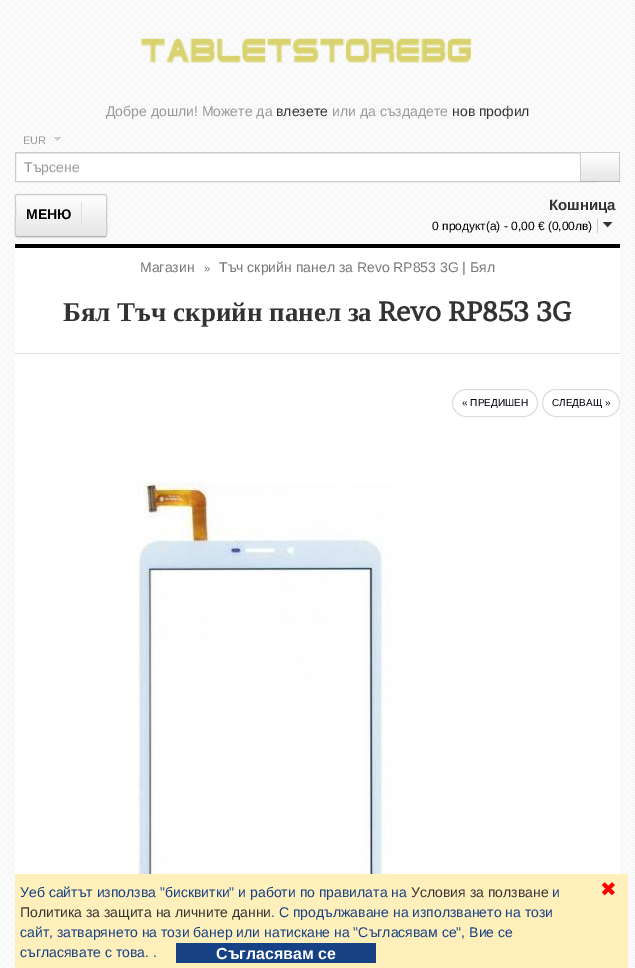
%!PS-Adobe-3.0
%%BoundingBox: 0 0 635 968
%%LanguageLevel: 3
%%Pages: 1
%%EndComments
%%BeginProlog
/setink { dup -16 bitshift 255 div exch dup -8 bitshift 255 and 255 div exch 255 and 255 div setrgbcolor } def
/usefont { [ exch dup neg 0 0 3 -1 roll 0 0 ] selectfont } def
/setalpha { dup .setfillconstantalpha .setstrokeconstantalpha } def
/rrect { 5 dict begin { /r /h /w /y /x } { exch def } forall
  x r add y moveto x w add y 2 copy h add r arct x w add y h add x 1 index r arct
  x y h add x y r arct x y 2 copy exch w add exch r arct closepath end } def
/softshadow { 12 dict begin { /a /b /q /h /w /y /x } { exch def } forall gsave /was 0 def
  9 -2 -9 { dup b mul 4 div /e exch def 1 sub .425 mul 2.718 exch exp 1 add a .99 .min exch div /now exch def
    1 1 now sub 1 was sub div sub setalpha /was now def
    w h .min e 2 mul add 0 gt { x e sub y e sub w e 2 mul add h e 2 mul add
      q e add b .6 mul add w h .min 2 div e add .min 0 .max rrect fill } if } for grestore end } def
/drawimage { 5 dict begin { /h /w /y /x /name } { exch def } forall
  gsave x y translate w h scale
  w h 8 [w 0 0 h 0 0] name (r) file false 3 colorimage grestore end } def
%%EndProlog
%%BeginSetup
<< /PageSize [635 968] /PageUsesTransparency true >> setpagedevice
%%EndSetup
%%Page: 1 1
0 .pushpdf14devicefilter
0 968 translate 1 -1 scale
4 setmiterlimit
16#FBFBFB setink
0 0 635 968 rectfill
(img1.raw) 0 0 635 968 drawimage
(img2.raw) 140 38 332 25 drawimage
/LiberationSans-Regular 14 usefont
16#999999 setink
106 116 moveto (Добре дошли! Можете да) show
16#333333 setink
276 116 moveto (влезете) show
16#999999 setink
332 116 moveto (или да създадете) show
16#333333 setink
452 116 moveto (нов профил) show
(img3.raw) 54 137 7 4 drawimage
/LiberationSans-Regular 11 usefont
16#999999 setink
23 144 moveto (EUR) show
16#FFFFFF setink
16 154 564 27 rectfill
16#ECECEC setink
16 153 564 1 rectfill
16#CCCCCC setink
15.5 152.5 578 29 rectstroke
/LiberationSans-Regular 14 usefont
16#999999 setink
24 172 moveto (Търсене) show
gsave 581 153 moveto 619 153 lineto 619 181 lineto 581 181 lineto closepath clip newpath
<< /ShadingType 2 /ColorSpace /DeviceRGB /Coords [600 153 600 181] /Extend [true true] /Function << /FunctionType 2 /Domain [0 1] /C0 [1 1 1] /C1 [0.902 0.902 0.902] /N 1 >> >> shfill grestore
[
    [594 152 26 1 16#CCCCCC]
    [619 152 1 30 16#CCCCCC]
    [580 181 40 1 16#B3B3B3]
    [580 152 1 30 16#CCCCCC]
] { aload pop setink rectfill } forall
/LiberationSans-Bold 15 usefont
16#333333 setink
549 210 moveto (Кошница) show
/LiberationSans-Regular 12 usefont
16#000000 setink
432 230 moveto (0 продукт\(а\) - 0,00 € \(0,00лв\)) show
16#CCCCCC setink
597 219 1 14 rectfill
(img4.raw) 603 222 10 6 drawimage
16#FFFFFF setink
15 248 605 626 rectfill
16#000000 setink
15 195 92 43 2 1 0.05 softshadow
gsave
15 194 92 43 2 rrect clip newpath
gsave 15 195 moveto 107 195 lineto 107 236 lineto 15 236 lineto closepath clip newpath
<< /ShadingType 2 /ColorSpace /DeviceRGB /Coords [61 195 61 236] /Extend [true true] /Function << /FunctionType 2 /Domain [0 1] /C0 [1 1 1] /C1 [0.902 0.902 0.902] /N 1 >> >> shfill grestore
grestore
0.2 setalpha
16#FFFFFF setink
17 196 moveto 105 196 lineto 106 196 106 196 106 197 curveto 106 196 106 195 105 195 curveto 32 195 lineto 30 195 16 191 16 197 curveto 16 196 16 196 17 196 curveto closepath fill
1 setalpha
16#B3B3B3 setink
106 236 moveto 105 236.5 lineto 17 236.5 lineto 16 236 lineto stroke
16#CCCCCC setink
16 236 moveto 14.5 234.5 15.5 218.5 15.5 215.5 curveto 15.5 202.5 lineto 15.5 199.5 14.5 194.5 17 194.5 curveto 105 194.5 lineto 107.5 194.5 106.5 199.5 106.5 202.5 curveto 106.5 215.5 lineto 106.5 218.5 107.5 234.5 106 236 curveto stroke
16#DDDDDD setink
81 202 1 22 rectfill
/LiberationSans-Bold 14 usefont
16#000000 setink
26 219 moveto (МЕНЮ) show
15 244 605 4 rectfill
/LiberationSans-Regular 14 usefont
16#777777 setink
140 272 moveto (Магазин) show
/LiberationSans-Regular 11 usefont
204 272 moveto (») show
/LiberationSans-Regular 14 usefont
219 272 moveto (Тъч скрийн панел за Revo RP853 3G | Бял) show
16#DDDDDD setink
15 353 605 1 rectfill
/LiberationSerif-Bold 27 usefont
16#333333 setink
63 321 moveto (Бял Тъч скрийн панел за) show
/Brawler-Bold 27 usefont
378 321 moveto (Revo RP853 3G) show
16#DDDDDD setink
452.5 389.5 85 27 13.5 rrect stroke
/LiberationSans-Regular 10 usefont
16#02020D setink
462 406 moveto (« ПРЕДИШЕН) show
16#DDDDDD setink
542.5 389.5 77 27 13.5 rrect stroke
16#02020D setink
552 406 moveto (СЛЕДВАЩ ») show
(img5.raw) 137 479 256 395 drawimage
16#FFEFBB setink
15 874 613 94 rectfill
/LiberationSans-Regular 14 usefont
16#144084 setink
20 897 moveto (Уеб сайтът използва "бисквитки" и работи по правилата на) show
16#333333 setink
411 897 moveto (Условия за ползване) show
16#144084 setink
552 897 moveto (и) show
16#333333 setink
20 917 moveto (Политика за защита на личните данни) show
16#144084 setink
[
    [(. С продължаване на използването на този) 271 917]
    [(сайт, затварянето на този банер или натискане на "Съгласявам се", Вие се) 20 937]
    [(съгласявате с това. .) 20 957]
] { aload pop moveto show } forall
16#164185 setink
176 943 200 20 rectfill
/LiberationSans-Bold 16 usefont
16#FFFFFF setink
216 959 moveto (Съгласявам се) show
/DejaVuSans-Regular 20 usefont
16#FF0000 setink
600 896 moveto (✖) show
.poppdf14devicefilter showpage
%%EOF
